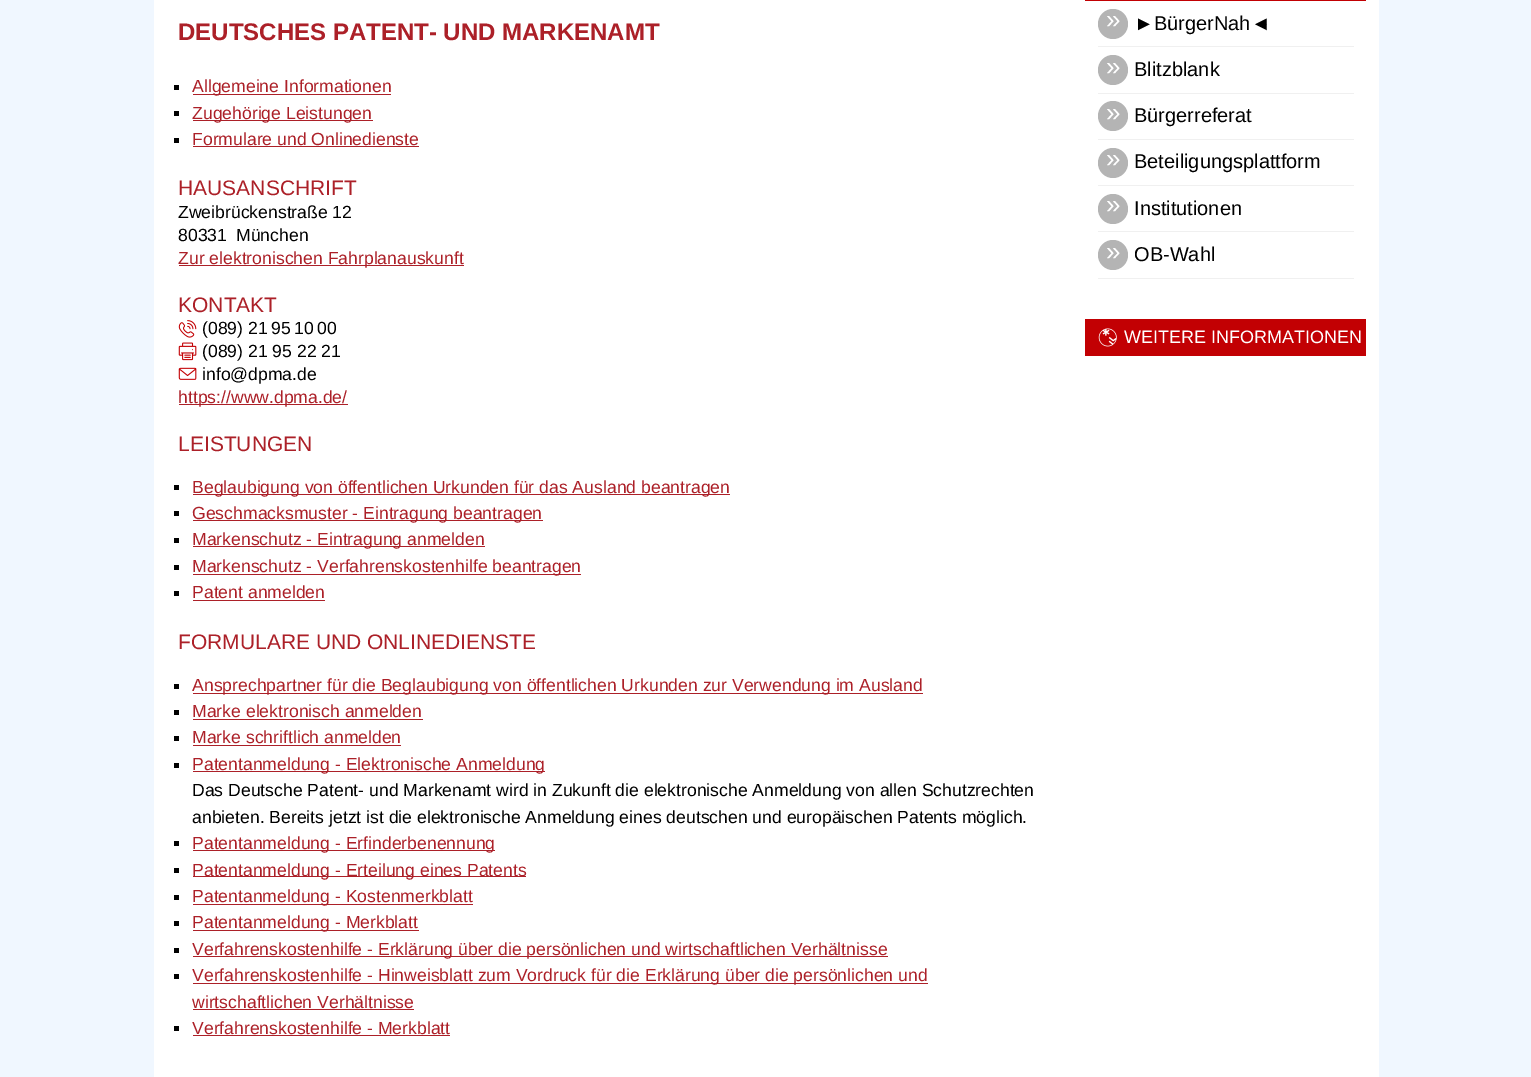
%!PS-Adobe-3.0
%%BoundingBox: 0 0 1531 1077
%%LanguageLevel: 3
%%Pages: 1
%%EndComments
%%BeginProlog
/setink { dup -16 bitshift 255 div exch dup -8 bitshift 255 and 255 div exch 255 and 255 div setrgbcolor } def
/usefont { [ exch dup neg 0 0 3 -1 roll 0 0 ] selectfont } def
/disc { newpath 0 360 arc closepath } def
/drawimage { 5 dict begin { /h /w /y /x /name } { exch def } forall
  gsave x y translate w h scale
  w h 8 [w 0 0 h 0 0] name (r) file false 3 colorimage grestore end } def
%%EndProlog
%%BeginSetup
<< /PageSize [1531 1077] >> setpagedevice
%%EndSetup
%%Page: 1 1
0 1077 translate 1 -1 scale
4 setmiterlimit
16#F0F7FF setink
0 0 1531 1077 rectfill
16#FFFFFF setink
154 0 1225 1077 rectfill
/LiberationSans-Bold 24 usefont
16#AC2028 setink
178 40 moveto (DEUTSCHES PATENT- UND MARKENAMT) show
16#000000 setink
174 85 5 5 rectfill
16#AC2028 setink
193 94 198 1 rectfill
/LiberationSans-Regular 17.6 usefont
192 92 moveto (Allgemeine Informationen) show
16#000000 setink
174 111 5 5 rectfill
16#AC2028 setink
193 120 180 1 rectfill
192 119 moveto (Zugehörige Leistungen) show
16#000000 setink
174 138 5 5 rectfill
16#AC2028 setink
192 145 moveto (Formulare und Onlinedienste) show
193 146 226 1 rectfill
/LiberationSans-Regular 21 usefont
178 195 moveto (HAUSANSCHRIFT) show
/LiberationSans-Regular 17.6 usefont
16#000000 setink
[
    [(Zweibrückenstraße 12) 178 218]
    [(80331) 178 241]
    [(München) 236 241]
] { aload pop moveto show } forall
16#AC2028 setink
179 265 285 1 rectfill
178 264 moveto (Zur elektronischen Fahrplanauskunft) show
/LiberationSans-Regular 21 usefont
178 312 moveto (KONTAKT) show
(img1.raw) 178 320 19 18 drawimage
/LiberationSans-Regular 17.6 usefont
16#000000 setink
[
    [(\(089\) 21) 202 334]
    [(95) 271 334]
    [(10) 294 334]
    [(00) 317 334]
] { aload pop moveto show } forall
(img2.raw) 178 342 19 19 drawimage
202 357 moveto (\(089\) 21 95 22 21) show
(img3.raw) 178 367 19 13 drawimage
202 380 moveto (info@dpma.de) show
16#AC2028 setink
179 404 169 1 rectfill
178 403 moveto (https://www.dpma.de/) show
/LiberationSans-Regular 21 usefont
178 451 moveto (LEISTUNGEN) show
16#000000 setink
174 485 5 5 rectfill
16#AC2028 setink
193 494 537 1 rectfill
/LiberationSans-Regular 17.6 usefont
192 493 moveto (Beglaubigung von öffentlichen Urkunden für das Ausland beantragen) show
16#000000 setink
174 511 5 5 rectfill
16#AC2028 setink
193 520 350 1 rectfill
192 519 moveto (Geschmacksmuster - Eintragung beantragen) show
16#000000 setink
174 538 5 5 rectfill
16#AC2028 setink
193 546 292 1 rectfill
192 545 moveto (Markenschutz - Eintragung anmelden) show
16#000000 setink
174 565 5 5 rectfill
16#AC2028 setink
193 574 388 1 rectfill
192 572 moveto (Markenschutz - Verfahrenskostenhilfe beantragen) show
16#000000 setink
174 591 5 5 rectfill
16#AC2028 setink
192 598 moveto (Patent anmelden) show
193 600 132 1 rectfill
/LiberationSans-Regular 21 usefont
178 649 moveto (FORMULARE UND ONLINEDIENSTE) show
16#000000 setink
174 684 5 5 rectfill
16#AC2028 setink
193 693 730 1 rectfill
/LiberationSans-Regular 17.6 usefont
192 691 moveto (Ansprechpartner für die Beglaubigung von öffentlichen Urkunden zur Verwendung im Ausland) show
16#000000 setink
174 710 5 5 rectfill
16#AC2028 setink
192 717 moveto (Marke elektronisch anmelden) show
193 719 230 1 rectfill
16#000000 setink
174 736 5 5 rectfill
16#AC2028 setink
192 743 moveto (Marke schriftlich anmelden) show
[
    [193 745 208 1 16#AC2028]
    [174 763 5 5 16#000000]
    [193 771 352 1 16#AC2028]
] { aload pop setink rectfill } forall
192 770 moveto (Patentanmeldung - Elektronische Anmeldung) show
16#000000 setink
192 796 moveto (Das Deutsche Patent- und Markenamt wird in Zukunft die elektronische Anmeldung von allen Schutzrechten) show
192 823 moveto (anbieten. Bereits jetzt ist die elektronische Anmeldung eines deutschen und europäischen Patents möglich.) show
174 841 5 5 rectfill
16#AC2028 setink
193 850 302 1 rectfill
192 849 moveto (Patentanmeldung - Erfinderbenennung) show
16#000000 setink
174 868 5 5 rectfill
16#AC2028 setink
193 876 333 1 rectfill
192 876 moveto (Patentanmeldung - Erteilung eines Patents) show
16#000000 setink
174 895 5 5 rectfill
16#AC2028 setink
193 904 280 1 rectfill
192 902 moveto (Patentanmeldung - Kostenmerkblatt) show
16#000000 setink
174 921 5 5 rectfill
16#AC2028 setink
193 930 226 1 rectfill
192 928 moveto (Patentanmeldung - Merkblatt) show
16#000000 setink
174 948 5 5 rectfill
16#AC2028 setink
193 956 695 1 rectfill
192 955 moveto (Verfahrenskostenhilfe - Erklärung über die persönlichen und wirtschaftlichen Verhältnisse) show
16#000000 setink
174 974 5 5 rectfill
16#AC2028 setink
193 983 735 1 rectfill
192 981 moveto (Verfahrenskostenhilfe - Hinweisblatt zum Vordruck für die Erklärung über die persönlichen und) show
192 1008 moveto (wirtschaftlichen Verhältnisse) show
193 1009 221 1 rectfill
16#000000 setink
174 1026 5 5 rectfill
16#AC2028 setink
192 1034 moveto (Verfahrenskostenhilfe - Merkblatt) show
[
    [193 1035 257 1 16#AC2028]
    [1085 0 281 1 16#C20003]
    [1098 46 256 1 16#F0F0F0]
] { aload pop setink rectfill } forall
16#B4B4B4 setink
1113 24 15 disc fill
/LiberationSans-Regular 26 usefont
16#FFFFFF setink
1106 28 moveto (») show
/LiberationSans-Regular 20 usefont
16#000000 setink
1134 30 moveto (►BürgerNah◄) show
16#F0F0F0 setink
1098 93 256 1 rectfill
16#B4B4B4 setink
1113 70 15 disc fill
/LiberationSans-Regular 26 usefont
16#FFFFFF setink
1106 75 moveto (») show
/LiberationSans-Regular 20 usefont
16#000000 setink
1134 76 moveto (Blitzblank) show
16#F0F0F0 setink
1098 139 256 1 rectfill
16#B4B4B4 setink
1113 116 15 disc fill
/LiberationSans-Regular 26 usefont
16#FFFFFF setink
1106 121 moveto (») show
/LiberationSans-Regular 20 usefont
16#000000 setink
1134 122 moveto (Bürgerreferat) show
16#F0F0F0 setink
1098 185 256 1 rectfill
16#B4B4B4 setink
1113 163 15 disc fill
/LiberationSans-Regular 26 usefont
16#FFFFFF setink
1106 167 moveto (») show
/LiberationSans-Regular 20 usefont
16#000000 setink
1134 168 moveto (Beteiligungsplattform) show
16#F0F0F0 setink
1098 231 256 1 rectfill
16#B4B4B4 setink
1113 209 15 disc fill
/LiberationSans-Regular 26 usefont
16#FFFFFF setink
1106 213 moveto (») show
/LiberationSans-Regular 20 usefont
16#000000 setink
1134 215 moveto (Institutionen) show
16#F0F0F0 setink
1098 278 256 1 rectfill
16#B4B4B4 setink
1113 255 15 disc fill
/LiberationSans-Regular 26 usefont
16#FFFFFF setink
1106 260 moveto (») show
/LiberationSans-Regular 20 usefont
16#000000 setink
1134 261 moveto (OB-Wahl) show
16#C20003 setink
1085 319 281 37 rectfill
(img4.raw) 1098 328 19 19 drawimage
/LiberationSans-Regular 18 usefont
16#FFFFFF setink
1124 343 moveto (WEITERE INFORMATIONEN) show
showpage
%%EOF
